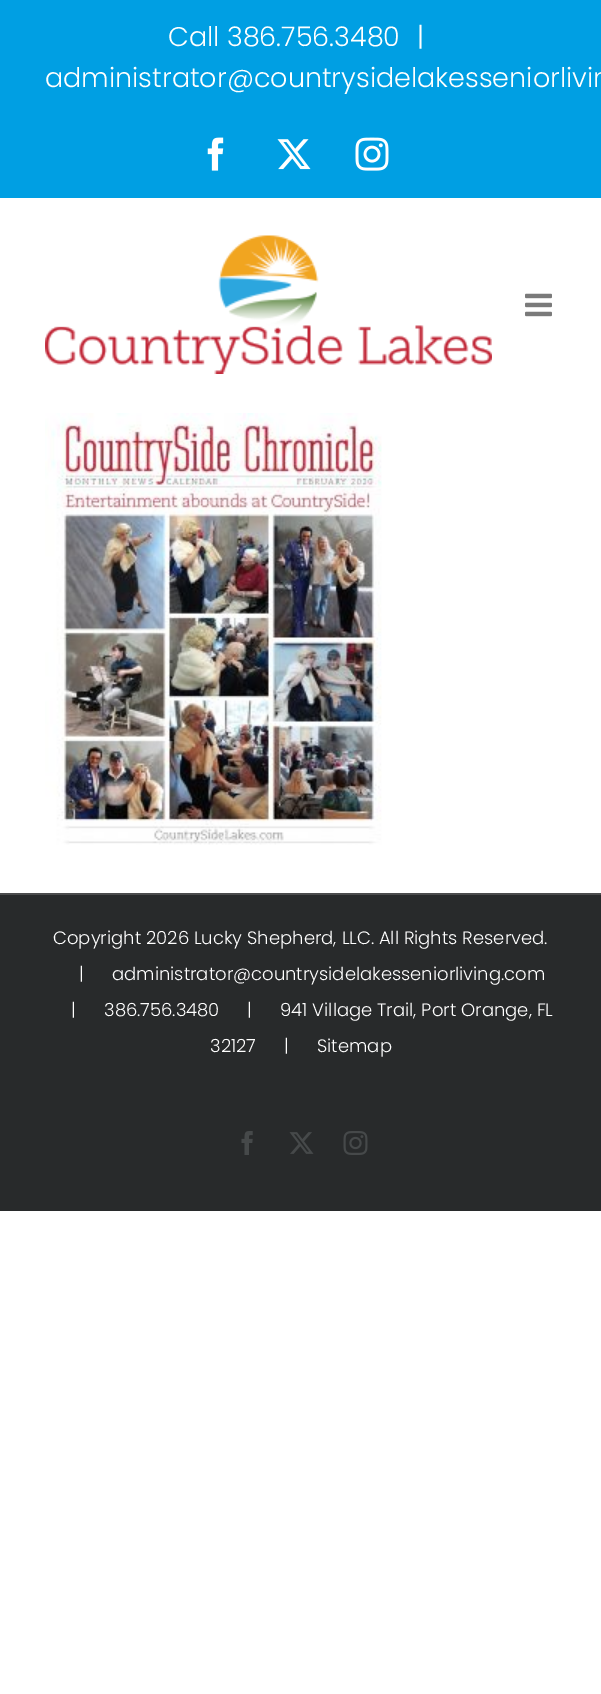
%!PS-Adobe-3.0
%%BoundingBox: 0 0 601 1694
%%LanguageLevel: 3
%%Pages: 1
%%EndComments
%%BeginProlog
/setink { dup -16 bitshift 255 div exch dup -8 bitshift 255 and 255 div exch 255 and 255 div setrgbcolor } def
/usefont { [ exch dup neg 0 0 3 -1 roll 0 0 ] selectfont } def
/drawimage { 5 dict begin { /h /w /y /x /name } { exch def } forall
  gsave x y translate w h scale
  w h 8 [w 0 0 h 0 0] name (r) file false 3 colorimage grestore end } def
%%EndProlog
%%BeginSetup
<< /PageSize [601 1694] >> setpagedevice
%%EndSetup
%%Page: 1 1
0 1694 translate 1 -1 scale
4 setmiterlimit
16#FFFFFF setink
0 0 601 1694 rectfill
16#009FE3 setink
0 0 601 198 rectfill
/Poppins-Light 27 usefont
16#FFFFFF setink
[
    [(Call 386.756.3480) 168 46]
    [(|) 417 46]
    [(administrator@countrysidelakesseniorlivin) 45 87]
] { aload pop moveto show } forall
(img1.raw) 207 137 17 34 drawimage
(img2.raw) 277 139 34 31 drawimage
(img3.raw) 355 137 34 34 drawimage
(img4.raw) 45 235 447 139 drawimage
(img5.raw) 525 293 27 24 drawimage
(img6.raw) 45 413 337 432 drawimage
16#282A2B setink
0 895 601 316 rectfill
16#4B4C4D setink
0 893 601 2 rectfill
/Poppins-Light 18 usefont
16#FFFFFF setink
[
    [(Copyright 2026 Lucky Shepherd, LLC. All Rights Reserved.) 53 944]
    [(|) 79 980]
    [(administrator@countrysidelakesseniorliving.com) 112 980]
    [(|) 71 1016]
    [(386.756.3480) 104 1016]
    [(|) 247 1016]
    [(941 Village Trail, Port Orange, FL) 280 1016]
    [(32127) 210 1052]
    [(|) 284 1052]
    [(Sitemap) 317 1052]
] { aload pop moveto show } forall
(img7.raw) 241 1131 12 24 drawimage
(img8.raw) 289 1132 25 22 drawimage
(img9.raw) 343 1131 25 24 drawimage
showpage
%%EOF
